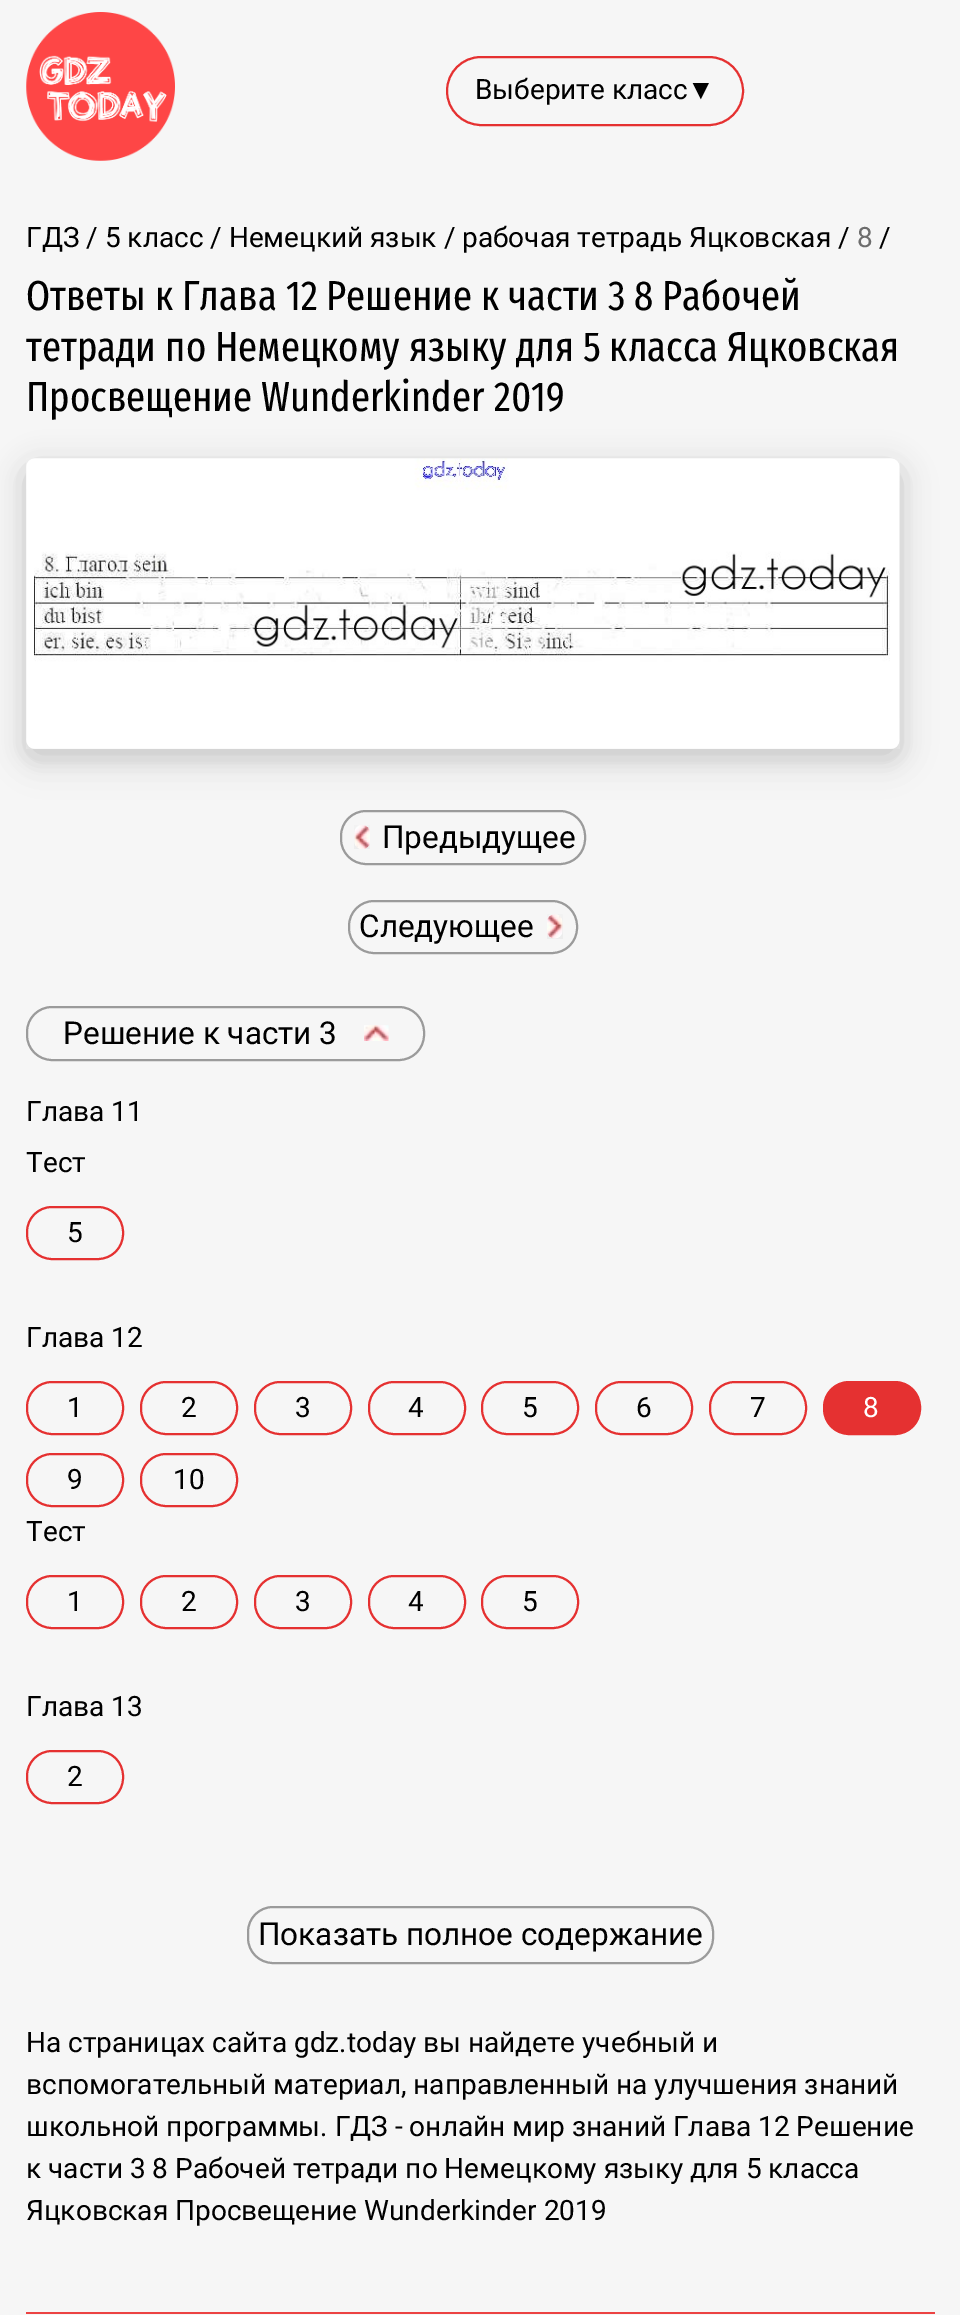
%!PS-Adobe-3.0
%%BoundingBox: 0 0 960 2315
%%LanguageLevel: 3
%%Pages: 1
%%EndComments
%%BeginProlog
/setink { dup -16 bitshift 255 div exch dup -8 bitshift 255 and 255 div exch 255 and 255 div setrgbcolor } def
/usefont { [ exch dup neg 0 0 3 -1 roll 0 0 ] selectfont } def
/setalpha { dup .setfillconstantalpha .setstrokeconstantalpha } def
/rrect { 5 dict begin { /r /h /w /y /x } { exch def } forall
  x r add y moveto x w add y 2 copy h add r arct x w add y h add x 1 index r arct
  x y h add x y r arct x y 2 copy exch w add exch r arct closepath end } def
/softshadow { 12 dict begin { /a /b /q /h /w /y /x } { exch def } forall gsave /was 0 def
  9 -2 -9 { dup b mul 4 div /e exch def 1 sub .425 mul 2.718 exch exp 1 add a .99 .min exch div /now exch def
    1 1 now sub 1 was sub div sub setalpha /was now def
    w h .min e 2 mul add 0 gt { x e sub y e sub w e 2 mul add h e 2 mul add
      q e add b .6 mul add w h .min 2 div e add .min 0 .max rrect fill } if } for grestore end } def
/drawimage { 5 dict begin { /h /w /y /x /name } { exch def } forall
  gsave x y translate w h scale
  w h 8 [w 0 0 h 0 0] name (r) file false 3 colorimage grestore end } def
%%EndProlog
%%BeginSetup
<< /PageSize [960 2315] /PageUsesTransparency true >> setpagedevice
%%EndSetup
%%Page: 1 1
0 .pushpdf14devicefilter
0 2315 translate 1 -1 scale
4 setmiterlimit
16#F6F6F6 setink
0 0 960 2315 rectfill
(img1.raw) 26 12 149 149 drawimage
16#E53131 setink
2 setlinewidth
447 57 296 68 34 rrect stroke
/Roboto-Regular 28 usefont
16#000000 setink
475 99 moveto (Выберите класс) show
/LiberationSans-Regular 28 usefont
687 99 moveto (▼) show
/Roboto-Regular 28 usefont
26 247 moveto (ГДЗ / 5 класс / Немецкий язык / рабочая тетрадь Яцковская /) show
16#6D6D6D setink
857 247 moveto (8) show
16#000000 setink
879 247 moveto (/) show
/FiraSansExtraCondensed-Regular 42 usefont
[
    [(Ответы к Глава 12 Решение к части 3 8 Рабочей) 26 310]
    [(тетради по Немецкому языку для 5 класса Яцковская) 26 361]
    [(Просвещение Wunderkinder 2019) 26 411]
] { aload pop moveto show } forall
16#9B9B9B setink
341 811 244 53 25 rrect stroke
16#000000 setink
26 469 874 291 9 17.5 0.11 softshadow
26 467 874 291 9 14 0.1 softshadow
(img2.raw) 26 458 874 291 drawimage
(img3.raw) 354 825 16 24 drawimage
/Roboto-Regular 31.5 usefont
382 848 moveto (Предыдущее) show
16#9B9B9B setink
349 901 228 52 25 rrect stroke
16#000000 setink
359 937 moveto (Следующее) show
(img4.raw) 547 914 16 25 drawimage
16#9B9B9B setink
27 1007 397 53 25 rrect stroke
16#000000 setink
63 1044 moveto (Решение к части 3) show
(img5.raw) 364 1025 25 16 drawimage
/Roboto-Regular 28 usefont
26 1121 moveto (Глава 11) show
26 1172 moveto (Тест) show
16#E53131 setink
27 1207 96 52 25 rrect stroke
16#000000 setink
67 1242 moveto (5) show
26 1347 moveto (Глава 12) show
16#E53131 setink
27 1382 96 52 25 rrect stroke
16#000000 setink
67 1417 moveto (1) show
16#E53131 setink
141 1382 96 52 25 rrect stroke
16#000000 setink
181 1417 moveto (2) show
16#E53131 setink
255 1382 96 52 25 rrect stroke
16#000000 setink
295 1417 moveto (3) show
16#E53131 setink
369 1382 96 52 25 rrect stroke
16#000000 setink
408 1417 moveto (4) show
16#E53131 setink
482 1382 96 52 25 rrect stroke
16#000000 setink
522 1417 moveto (5) show
16#E53131 setink
596 1382 96 52 25 rrect stroke
16#000000 setink
636 1417 moveto (6) show
16#E53131 setink
710 1382 96 52 25 rrect stroke
16#000000 setink
750 1417 moveto (7) show
16#E53131 setink
824 1382 96 52 25 rrect gsave fill grestore
stroke
16#FFFFFF setink
863 1417 moveto (8) show
16#E53131 setink
27 1454 96 52 25 rrect stroke
16#000000 setink
67 1489 moveto (9) show
16#E53131 setink
141 1454 96 52 25 rrect stroke
16#000000 setink
173 1489 moveto (10) show
26 1541 moveto (Тест) show
16#E53131 setink
27 1576 96 52 25 rrect stroke
16#000000 setink
67 1611 moveto (1) show
16#E53131 setink
141 1576 96 52 25 rrect stroke
16#000000 setink
181 1611 moveto (2) show
16#E53131 setink
255 1576 96 52 25 rrect stroke
16#000000 setink
295 1611 moveto (3) show
16#E53131 setink
369 1576 96 52 25 rrect stroke
16#000000 setink
408 1611 moveto (4) show
16#E53131 setink
482 1576 96 52 25 rrect stroke
16#000000 setink
522 1611 moveto (5) show
26 1716 moveto (Глава 13) show
16#E53131 setink
27 1751 96 52 25 rrect stroke
16#000000 setink
67 1786 moveto (2) show
16#9B9B9B setink
248 1907 465 56 25 rrect stroke
/Roboto-Regular 31.5 usefont
16#000000 setink
258 1945 moveto (Показать полное содержание) show
/Roboto-Regular 28 usefont
[
    [(На страницах сайта gdz.today вы найдете учебный и) 26 2052]
    [(вспомогательный материал, направленный на улучшения знаний) 26 2094]
    [(школьной программы. ГДЗ - онлайн мир знаний Глава 12 Решение) 26 2136]
    [(к части 3 8 Рабочей тетради по Немецкому языку для 5 класса) 26 2178]
    [(Яцковская Просвещение Wunderkinder 2019) 26 2220]
] { aload pop moveto show } forall
16#EC4343 setink
26 2312 909 2 rectfill
.poppdf14devicefilter showpage
%%EOF
